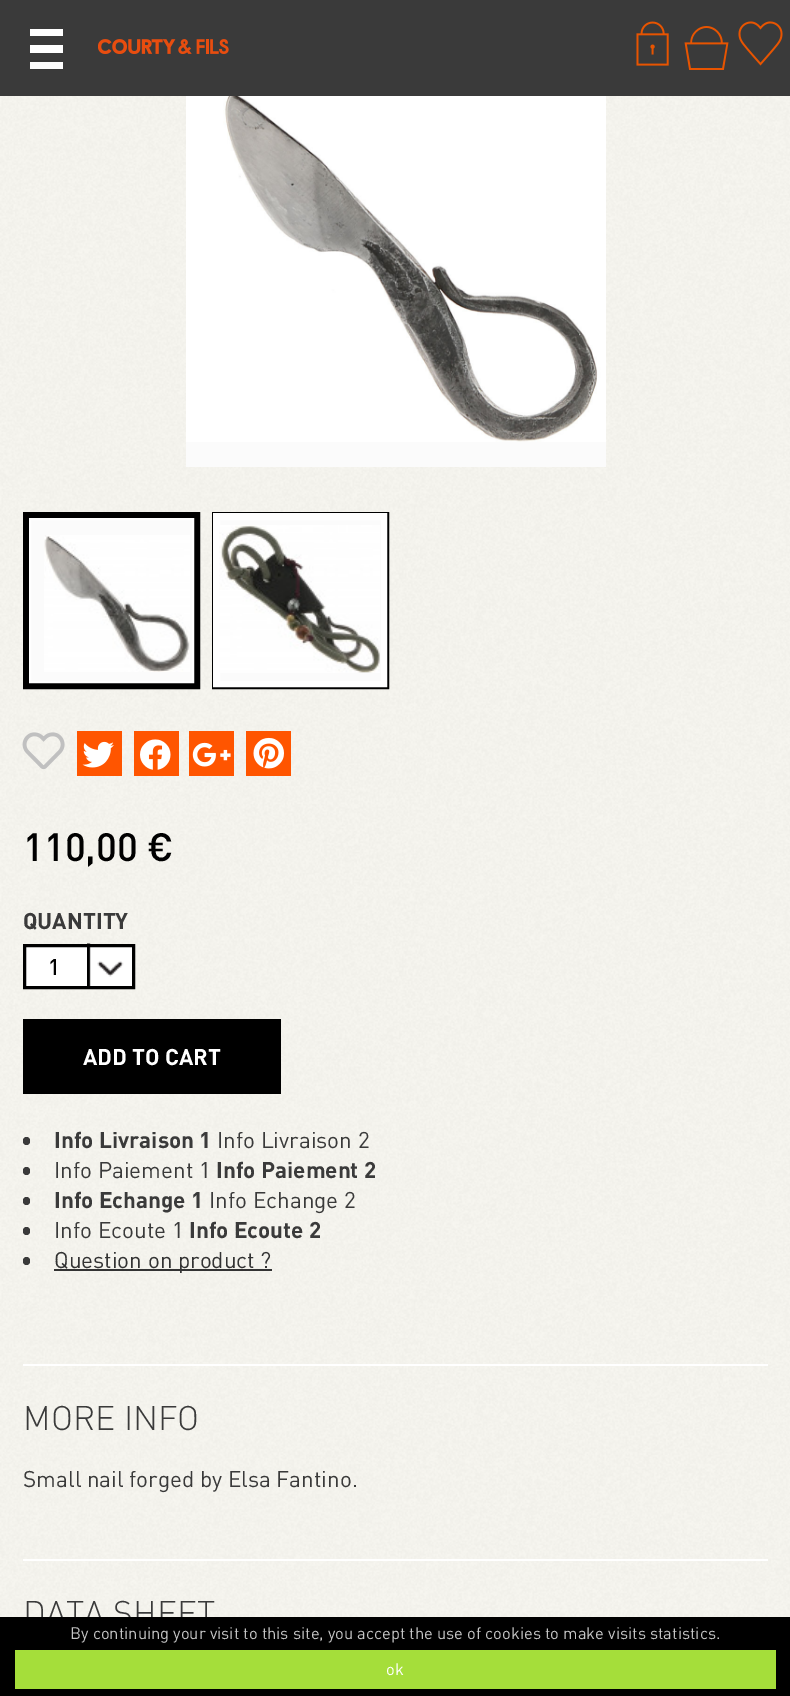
%!PS-Adobe-3.0
%%BoundingBox: 0 0 790 1696
%%LanguageLevel: 3
%%Pages: 1
%%EndComments
%%BeginProlog
/setink { dup -16 bitshift 255 div exch dup -8 bitshift 255 and 255 div exch 255 and 255 div setrgbcolor } def
/usefont { [ exch dup neg 0 0 3 -1 roll 0 0 ] selectfont } def
/rrect { 5 dict begin { /r /h /w /y /x } { exch def } forall
  x r add y moveto x w add y 2 copy h add r arct x w add y h add x 1 index r arct
  x y h add x y r arct x y 2 copy exch w add exch r arct closepath end } def
/drawimage { 5 dict begin { /h /w /y /x /name } { exch def } forall
  gsave x y translate w h scale
  w h 8 [w 0 0 h 0 0] name (r) file false 3 colorimage grestore end } def
%%EndProlog
%%BeginSetup
<< /PageSize [790 1696] >> setpagedevice
%%EndSetup
%%Page: 1 1
0 1696 translate 1 -1 scale
4 setmiterlimit
16#FFFFFF setink
0 0 790 1696 rectfill
(img1.raw) 0 96 790 1521 drawimage
[
    [0 0 790 96 16#3A3A3A]
    [30 29 33 7 16#FFFFFF]
    [30 45 33 8 16#FFFFFF]
    [30 62 33 7 16#FFFFFF]
] { aload pop setink rectfill } forall
(img2.raw) 98 39 131 15 drawimage
(img3.raw) 636 21 33 45 drawimage
(img4.raw) 684 26 45 44 drawimage
(img5.raw) 738 21 45 45 drawimage
(img6.raw) 186 96 420 346 drawimage
16#FBFBFB setink
186 442 420 25 rectfill
16#000000 setink
2 setlinewidth
24 513 175 175 rectstroke
16#FBFBFB setink
31 520 161 161 rectfill
16#000000 setink
5 setlinewidth
26.5 515.5 169 169 rectstroke
16#FFFFFF setink
2 setlinewidth
30 519 163 163 rectstroke
(img7.raw) 44 535 146 137 drawimage
16#000000 setink
213 513 175 175 rectstroke
16#FBFBFB setink
220 520 161 161 rectfill
16#FFFFFF setink
5 setlinewidth
215.5 515.5 169 169 rectstroke
2 setlinewidth
219 519 163 163 rectstroke
(img8.raw) 219 525 161 148 drawimage
(img9.raw) 22 732 43 38 drawimage
16#FF5500 setink
77 731 45 45 rectfill
(img10.raw) 82 741 32 27 drawimage
134 731 45 45 rectfill
(img11.raw) 140 739 31 31 drawimage
189 731 45 45 rectfill
(img12.raw) 192 742 39 25 drawimage
246 731 45 45 rectfill
(img13.raw) 253 737 31 32 drawimage
/DIN-Medium 39 usefont
16#000000 setink
23 861 moveto (110,00 €) show
/DIN-Bold 22.5 usefont
16#3A3A3A setink
23 929 moveto (QUANTITY) show
16#FFFFFF setink
26 947 106 39 rectfill
(img14.raw) 87 943 37 43 drawimage
16#000000 setink
3 setlinewidth
24.5 945.5 109 42 rectstroke
/DIN-Medium 22.5 usefont
48 975 moveto (1) show
23 1019 258 75 rectfill
/DIN-Bold 22.5 usefont
16#FFFFFF setink
83 1065 moveto (ADD TO CART) show
16#3A3A3A setink
23 1137 7 8 3.5 rrect fill
54 1148 moveto (Info Livraison 1) show
/DIN-Regular 22.5 usefont
217 1148 moveto (Info Livraison 2) show
23 1167 7 8 3.5 rrect fill
54 1178 moveto (Info Paiement 1) show
/DIN-Bold 22.5 usefont
216 1178 moveto (Info Paiement 2) show
23 1197 7 8 3.5 rrect fill
54 1208 moveto (Info Echange 1) show
/DIN-Regular 22.5 usefont
209 1208 moveto (Info Echange 2) show
23 1227 7 8 3.5 rrect fill
54 1238 moveto (Info Ecoute 1) show
/DIN-Bold 22.5 usefont
189 1238 moveto (Info Ecoute 2) show
23 1257 7 8 3.5 rrect fill
16#333333 setink
54 1269 218 2 rectfill
/DIN-Regular 22.5 usefont
54 1268 moveto (Question on product ?) show
16#FFFFFF setink
23 1364 745 2 rectfill
/DIN-Light 33.75 usefont
16#3A3A3A setink
23 1430 moveto (MORE INFO) show
/DIN-Regular 22.5 usefont
23 1487 moveto (Small nail forged by Elsa Fantino.) show
16#FFFFFF setink
23 1559 745 2 rectfill
/DIN-Light 33.75 usefont
16#3A3A3A setink
23 1625 moveto (DATA SHEET) show
16#000000 setink
0 1617 790 79 rectfill
/DIN-Regular 16.5 usefont
16#C5C5C5 setink
70 1639 moveto (By continuing your visit to this site, you accept the use of cookies to make visits statistics.) show
16#A5DE3A setink
15 1650 761 39 rectfill
16#FFFFFF setink
386 1675 moveto (ok) show
showpage
%%EOF
